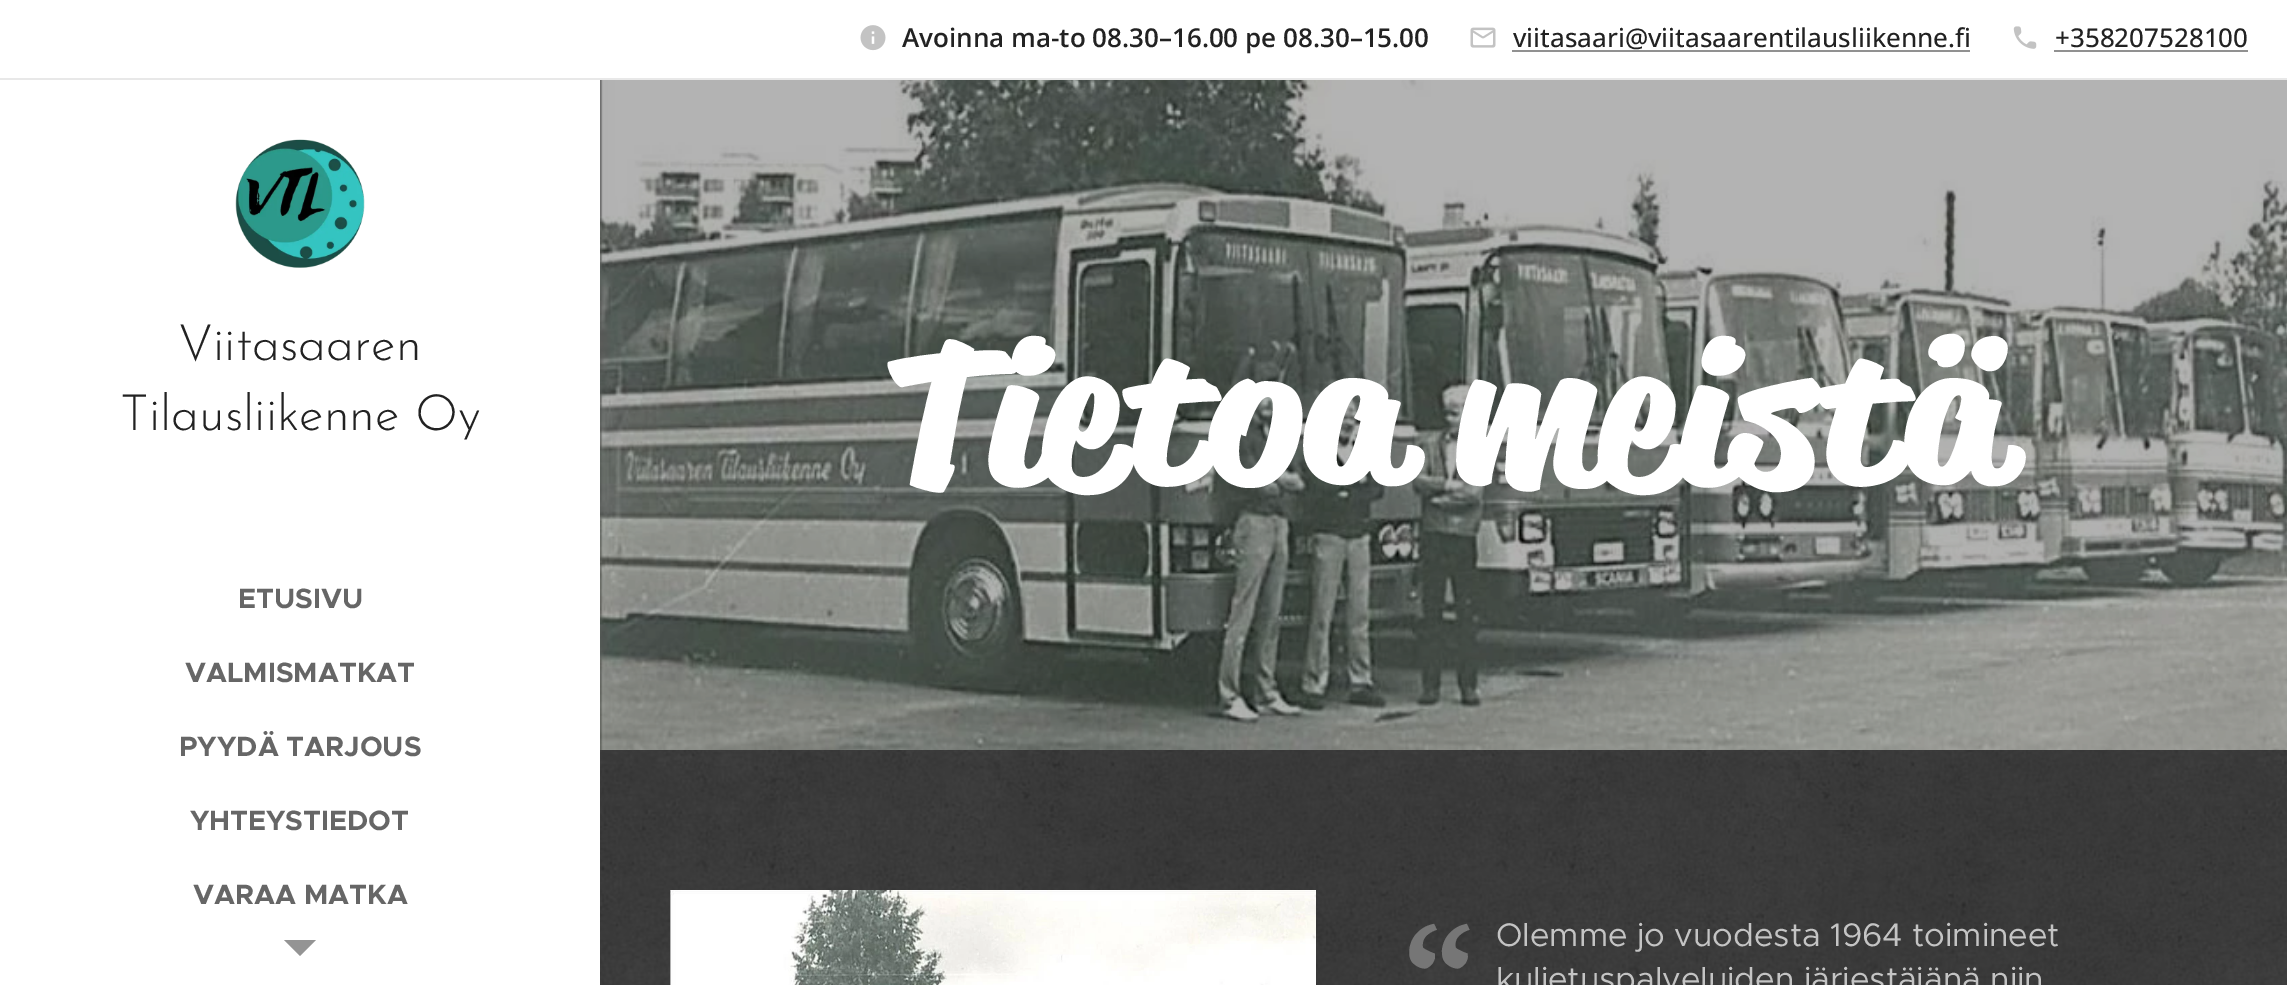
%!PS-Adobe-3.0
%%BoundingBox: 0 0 2287 985
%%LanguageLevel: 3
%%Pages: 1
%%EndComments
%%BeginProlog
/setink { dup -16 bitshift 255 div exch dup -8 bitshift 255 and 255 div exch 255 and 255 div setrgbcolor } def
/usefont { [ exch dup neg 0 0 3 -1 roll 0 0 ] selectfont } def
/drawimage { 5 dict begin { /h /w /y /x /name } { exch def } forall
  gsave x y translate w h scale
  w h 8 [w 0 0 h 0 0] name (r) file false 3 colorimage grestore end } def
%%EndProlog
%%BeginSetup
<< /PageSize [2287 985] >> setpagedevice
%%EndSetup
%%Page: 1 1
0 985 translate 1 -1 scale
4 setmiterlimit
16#FFFFFF setink
0 0 2287 985 rectfill
(img1.raw) 860 25 26 26 drawimage
/OpenSans-SemiBold 26 usefont
16#222222 setink
902 47 moveto (Avoinna ma-to 08.30–16.00 pe 08.30–15.00) show
(img2.raw) 1470 27 26 21 drawimage
/OpenSans-Medium 26 usefont
1513 47 moveto (viitasaari@viitasaarentilausliikenne.fi) show
16#919191 setink
1512 50 458 2 rectfill
(img3.raw) 2013 26 24 23 drawimage
16#222222 setink
2055 47 moveto (+358207528100) show
16#919191 setink
2054 50 194 2 rectfill
16#E8E8E8 setink
0 78 2287 2 rectfill
(img4.raw) 235 139 130 129 drawimage
/JosefinSans-Light 50 usefont
16#222222 setink
178 360 moveto (Viitasaaren) show
120 430 moveto (Tilausliikenne Oy) show
/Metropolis-Bold 28 usefont
16#666666 setink
[
    [(ETUSIVU) 238 608]
    [(VALMISMATKAT) 185 682]
    [(PYYDÄ TARJOUS) 179 756]
    [(YHTEYSTIEDOT) 190 830]
    [(VARAA MATKA) 193 904]
] { aload pop moveto show } forall
16#949494 setink
284 940 moveto 316 940 lineto 300 956 lineto closepath fill
(img5.raw) 600 80 1687 670 drawimage
/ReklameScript-Bold 192 usefont
16#FFFFFF setink
883 480 moveto (Tietoa meistä) show
(img6.raw) 600 750 1687 235 drawimage
(img7.raw) 670 890 646 95 drawimage
/PTSerif-Regular 180 usefont
16#767676 setink
1396 1072 moveto (“) show
/Metropolis-Regular 32.75 usefont
16#C4C4C4 setink
1496 946 moveto (Olemme jo vuodesta 1964 toimineet) show
1496 990 moveto (kuljetuspalveluiden järjestäjänä niin) show
showpage
%%EOF
